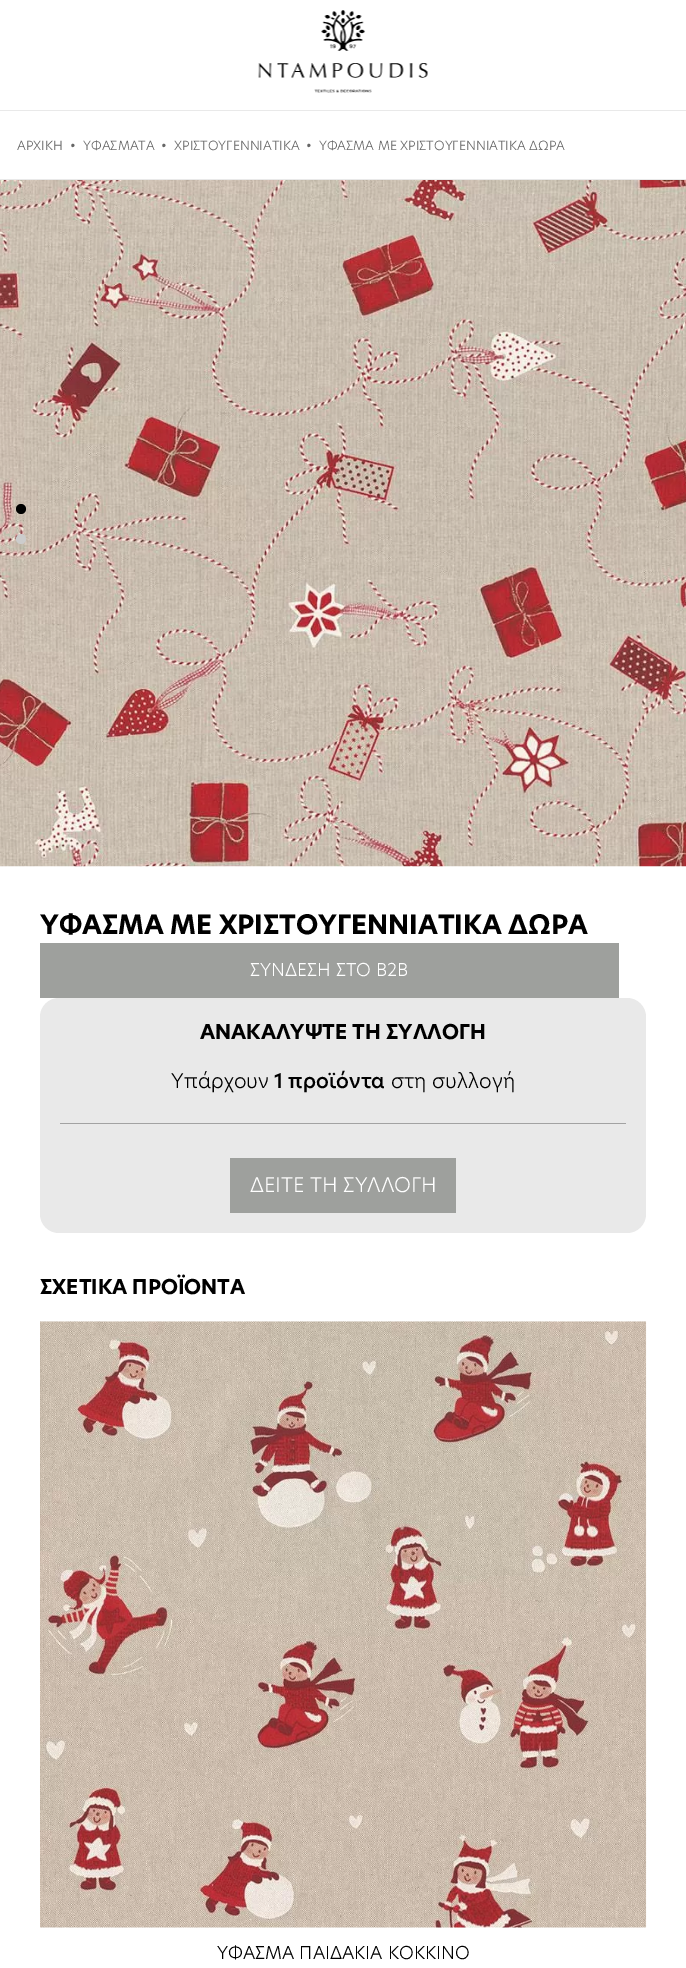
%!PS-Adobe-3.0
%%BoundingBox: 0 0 686 1968
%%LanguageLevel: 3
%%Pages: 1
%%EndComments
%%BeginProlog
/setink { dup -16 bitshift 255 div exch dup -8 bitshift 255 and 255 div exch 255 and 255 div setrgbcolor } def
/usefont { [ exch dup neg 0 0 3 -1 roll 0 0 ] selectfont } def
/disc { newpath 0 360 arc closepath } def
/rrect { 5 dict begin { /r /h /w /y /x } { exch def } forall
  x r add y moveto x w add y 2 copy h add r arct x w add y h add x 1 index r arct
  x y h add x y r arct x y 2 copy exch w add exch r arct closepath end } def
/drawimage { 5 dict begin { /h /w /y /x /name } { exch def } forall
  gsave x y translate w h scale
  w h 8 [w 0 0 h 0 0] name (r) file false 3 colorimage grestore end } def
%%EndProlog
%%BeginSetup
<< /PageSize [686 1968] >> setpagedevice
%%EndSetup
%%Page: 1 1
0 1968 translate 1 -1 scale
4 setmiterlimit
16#FFFFFF setink
0 0 686 1968 rectfill
(img1.raw) 258 10 170 83 drawimage
16#E9E9E9 setink
0 110 686 1 rectfill
0 179 686 1 rectfill
/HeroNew-Light 12.5 usefont
16#666666 setink
[
    [(ΑΡΧΙΚΗ) 17 150]
    [(•) 70 150]
    [(ΥΦΑΣΜΑΤΑ) 83 150]
    [(•) 161 150]
    [(ΧΡΙΣΤΟΥΓΕΝΝΙΑΤΙΚΑ) 174 150]
    [(•  ΥΦΑΣΜΑ ΜΕ ΧΡΙΣΤΟΥΓΕΝΝΙΑΤΙΚΑ ΔΩΡΑ) 306 150]
] { aload pop moveto show } forall
(img2.raw) 0 180 686 687 drawimage
16#000000 setink
21 509 5 disc fill
16#CCCCCC setink
21 539 5 disc fill
/HeroNew-Bold 26.25 usefont
16#000000 setink
40 934 moveto (ΥΦΑΣΜΑ ΜΕ ΧΡΙΣΤΟΥΓΕΝΝΙΑΤΙΚΑ ΔΩΡΑ) show
16#9EA09D setink
40 943 579 55 rectfill
/HeroNew-Light 17.5 usefont
16#FFFFFF setink
250 976 moveto (ΣΥΝΔΕΣΗ ΣΤΟ B2B) show
16#E9E9E9 setink
40 998 606 235 19 rrect fill
/HeroNew-Bold 20 usefont
16#000000 setink
200 1039 moveto (ΑΝΑΚΑΛΥΨΤΕ ΤΗ ΣΥΛΛΟΓΗ) show
/HeroNew-Light 20 usefont
171 1088 moveto (Υπάρχουν) show
/HeroNew-Medium 20 usefont
274 1088 moveto (1 προϊόντα) show
/HeroNew-Light 20 usefont
391 1088 moveto (στη συλλογή) show
16#A2A2A2 setink
60 1123 566 1 rectfill
16#9EA09D setink
230 1158 226 55 rectfill
16#FFFFFF setink
250 1192 moveto (ΔΕΙΤΕ ΤΗ ΣΥΛΛΟΓΗ) show
/HeroNew-Bold 20 usefont
16#000000 setink
40 1294 moveto (ΣΧΕΤΙΚΑ ΠΡΟΪΟΝΤΑ) show
(img3.raw) 40 1321 607 607 drawimage
/HeroNew-Light 17.5 usefont
217 1959 moveto (ΥΦΑΣΜΑ ΠΑΙΔΑΚΙΑ ΚΟΚΚΙΝΟ) show
showpage
%%EOF
